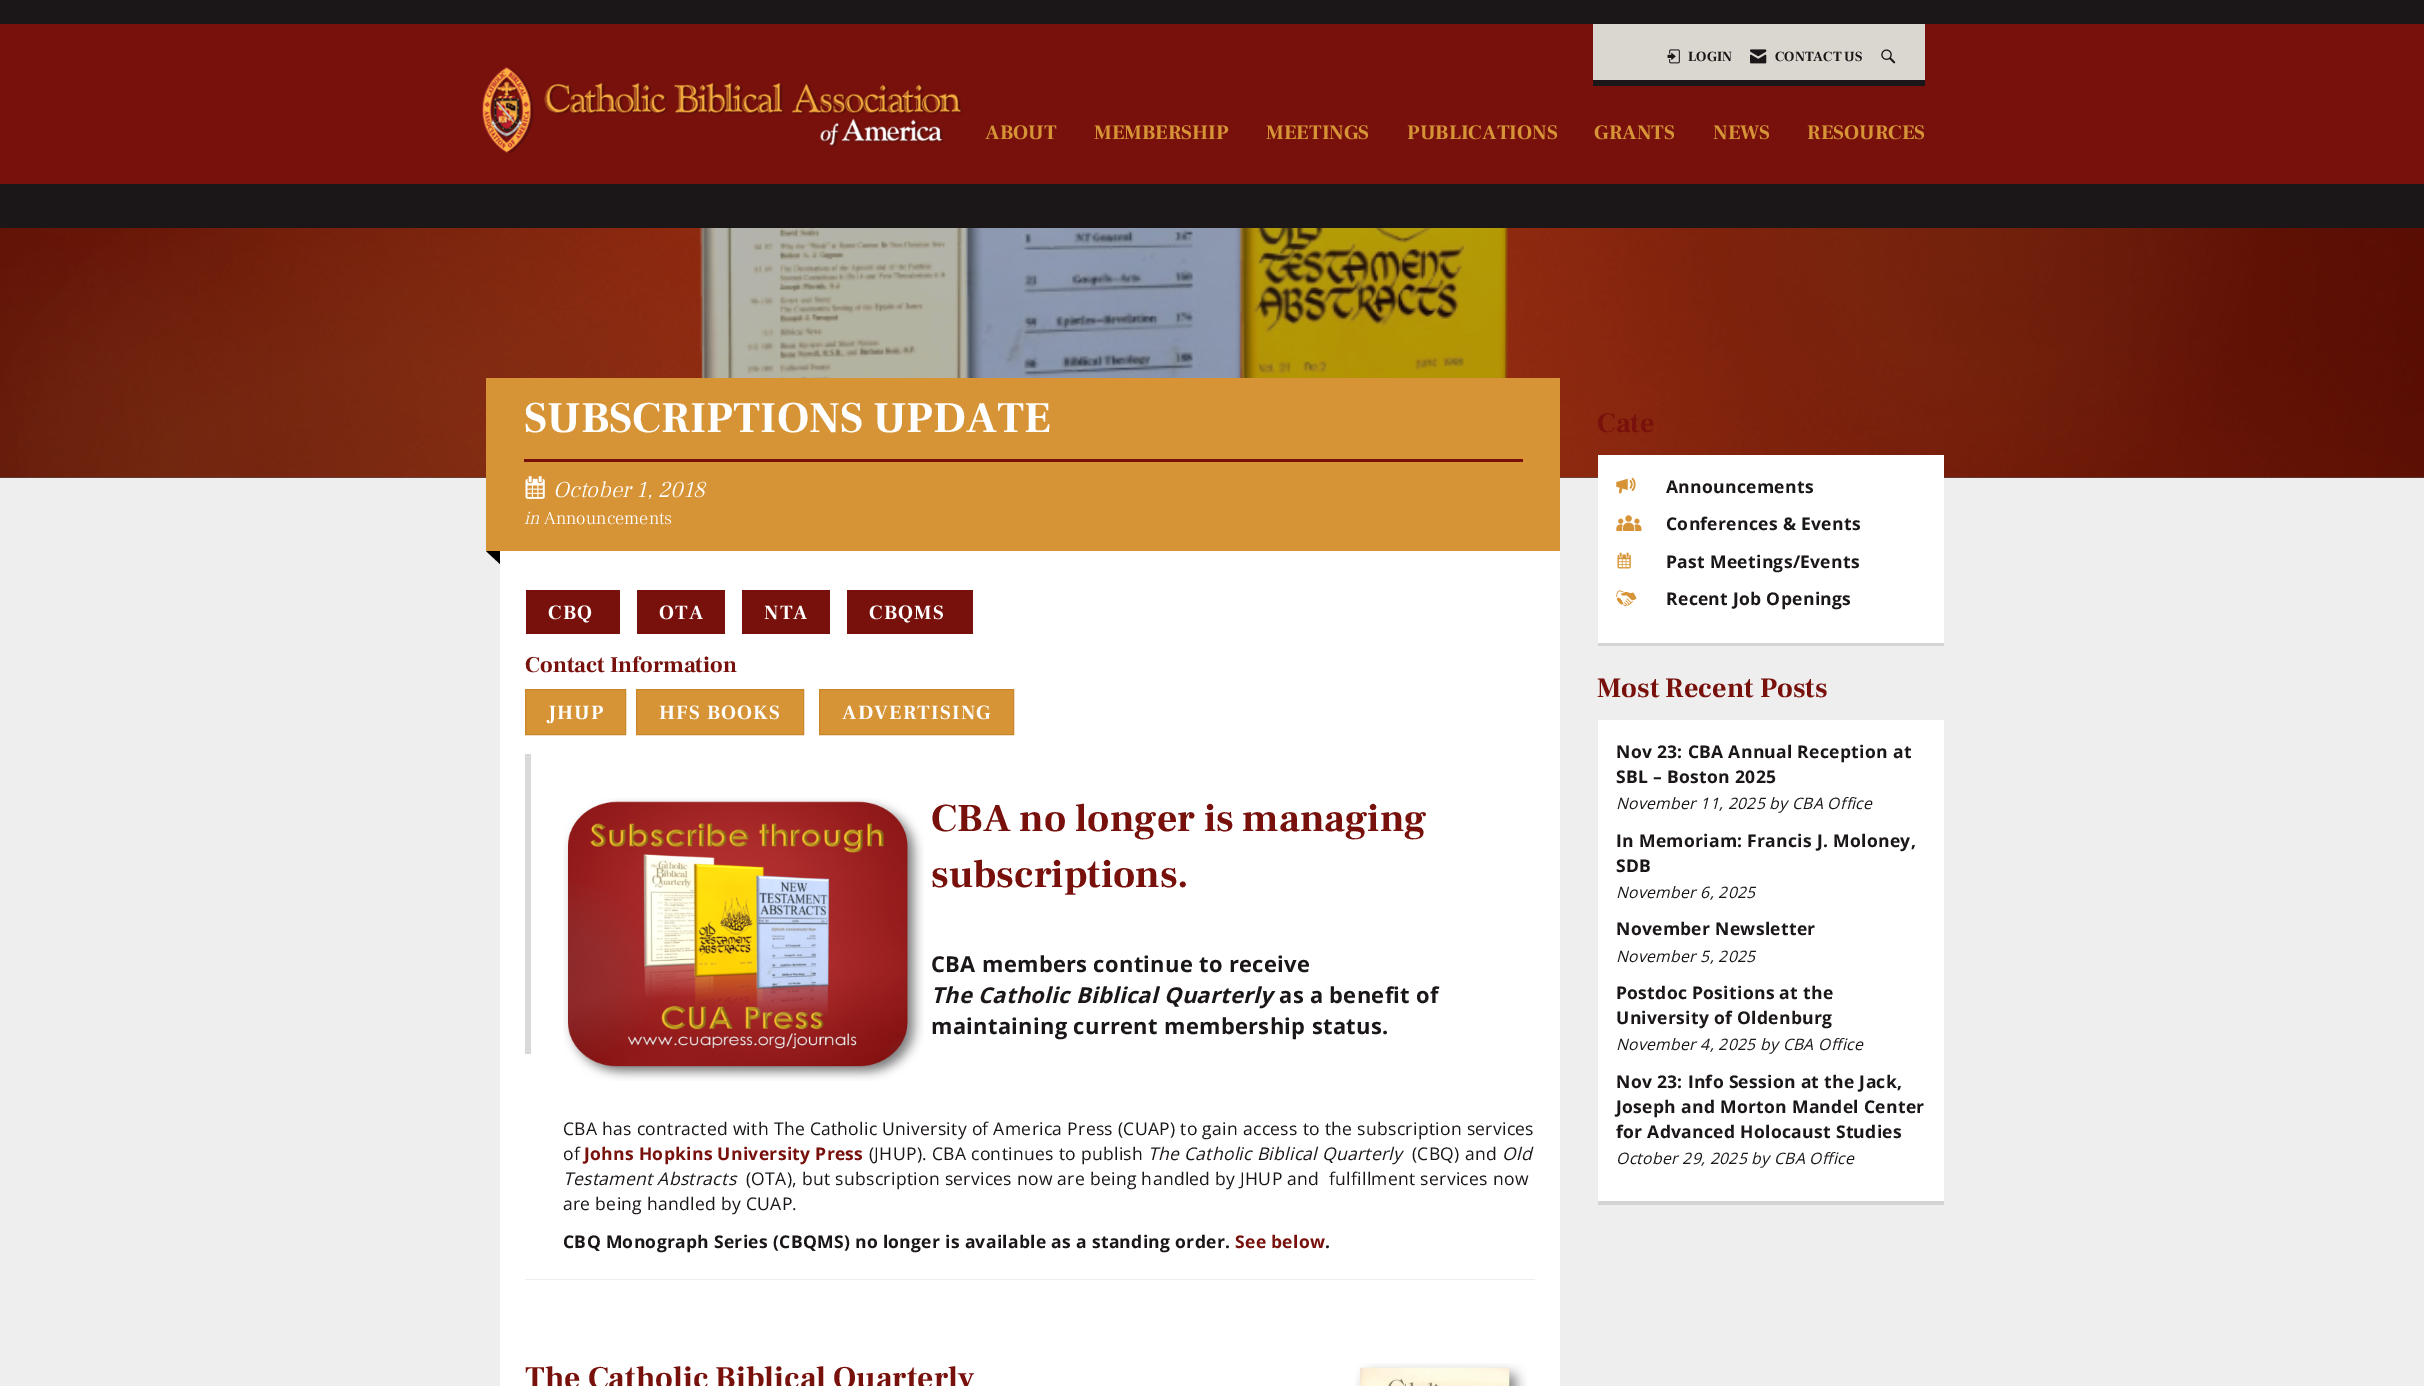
%!PS-Adobe-3.0
%%BoundingBox: 0 0 2424 1386
%%LanguageLevel: 3
%%Pages: 1
%%EndComments
%%BeginProlog
/setink { dup -16 bitshift 255 div exch dup -8 bitshift 255 and 255 div exch 255 and 255 div setrgbcolor } def
/usefont { [ exch dup neg 0 0 3 -1 roll 0 0 ] selectfont } def
/drawimage { 5 dict begin { /h /w /y /x /name } { exch def } forall
  gsave x y translate w h scale
  w h 8 [w 0 0 h 0 0] name (r) file false 3 colorimage grestore end } def
%%EndProlog
%%BeginSetup
<< /PageSize [2424 1386] >> setpagedevice
%%EndSetup
%%Page: 1 1
0 1386 translate 1 -1 scale
4 setmiterlimit
16#EEEEEE setink
0 0 2424 1386 rectfill
[
    [0 24 2424 160 16#78110C]
    [0 0 2424 24 16#1B1718]
    [1593 24 332 56 16#DAD6D0]
    [1593 80 332 6 16#1B1718]
] { aload pop setink rectfill } forall
(img1.raw) 1667 49 13 15 drawimage
/FrankRuhlLibre-Bold 14 usefont
1688 61 moveto (LOGIN) show
(img2.raw) 1750 49 17 15 drawimage
1775 61 moveto (CONTACT US) show
(img3.raw) 1881 49 15 15 drawimage
(img4.raw) 482 67 481 86 drawimage
/FrankRuhlLibre-Bold 20.5 usefont
16#D69437 setink
[
    [(ABOUT) 985 139]
    [(MEMBERSHIP) 1094 139]
    [(MEETINGS) 1266 139]
    [(PUBLICATIONS) 1407 139]
    [(GRANTS) 1594 139]
    [(NEWS) 1713 139]
    [(RESOURCES) 1807 139]
] { aload pop moveto show } forall
16#1B1718 setink
0 184 2424 44 rectfill
16#535353 setink
0 477 2424 1 rectfill
(img5.raw) 0 228 2424 250 drawimage
16#D69437 setink
486 378 1074 173 rectfill
16#78110C setink
524 459 999 3 rectfill
/FrankRuhlLibre-Bold 43.75 usefont
16#FFFFFF setink
524 432 moveto (SUBSCRIPTIONS UPDATE) show
(img6.raw) 525 476 20 23 drawimage
/FrankRuhlLibre-LightItalic 22.75 usefont
553 497 moveto (October 1, 2018) show
/FrankRuhlLibre-LightItalic 18.25 usefont
524 524 moveto (in) show
/FrankRuhlLibre-Light 18.25 usefont
544 524 moveto (Announcements) show
16#000000 setink
486 551 moveto 500 551 lineto 500 564 lineto closepath fill
16#FFFFFF setink
500 551 1060 835 rectfill
16#78110C setink
526 590 94 44 rectfill
/FrankRuhlLibre-Bold 20.25 usefont
16#FFFFFF setink
548 619 moveto 1.25 0 (CBQ) ashow
16#78110C setink
637 590 88 44 rectfill
16#FFFFFF setink
659 619 moveto 1.25 0 (OTA) ashow
16#78110C setink
742 590 88 44 rectfill
16#FFFFFF setink
764 619 moveto 1.25 0 (NTA) ashow
16#78110C setink
847 590 126 44 rectfill
16#FFFFFF setink
869 619 moveto 1.25 0 (CBQMS) ashow
/FrankRuhlLibre-Bold 22.5 usefont
16#78110C setink
525 672 moveto (Contact Information) show
16#D69437 setink
525.5 689.5 moveto 625.5 689.5 lineto 625.5 734.5 lineto 525.5 734.5 lineto closepath gsave fill grestore
16#CA8729 setink
stroke
/FrankRuhlLibre-Bold 20.25 usefont
16#FFFFFF setink
548 719 moveto 1.25 0 (JHUP) ashow
16#D69437 setink
636.5 689.5 moveto 803.5 689.5 lineto 803.5 734.5 lineto 636.5 734.5 lineto closepath gsave fill grestore
16#CA8729 setink
stroke
16#FFFFFF setink
659 719 moveto 1.25 0 (HFS BOOKS) ashow
16#D69437 setink
819.5 689.5 moveto 1013.5 689.5 lineto 1013.5 734.5 lineto 819.5 734.5 lineto closepath gsave fill grestore
16#CA8729 setink
stroke
16#FFFFFF setink
842 719 moveto 1.25 0 (ADVERTISING) ashow
16#D9D9D9 setink
525 754 6 300 rectfill
(img7.raw) 563 798 361 283 drawimage
/FrankRuhlLibre-Bold 39.4 usefont
16#78110C setink
931 831 moveto (CBA no longer is managing) show
931 887 moveto (subscriptions.) show
/OpenSans-Bold 21.9 usefont
16#1B1718 setink
931 972 moveto 0.31 0 (CBA members continue to receive) ashow
/OpenSans-BoldItalic 21.9 usefont
931 1003 moveto 0.31 0 (The Catholic Biblical Quarterly) ashow
/OpenSans-Bold 21.9 usefont
1279 1003 moveto 0.31 0 (as a benefit of) ashow
931 1034 moveto 0.31 0 (maintaining current membership status.) ashow
/OpenSans-Regular 17.5 usefont
563 1135 moveto 0.31 0 (CBA has contracted with The Catholic University of America Press \(CUAP\) to gain access to the subscription services) ashow
563 1160 moveto 0.31 0 (of) ashow
/OpenSans-Bold 17.5 usefont
16#78110C setink
584 1160 moveto 0.31 0 (Johns Hopkins University Press) ashow
/OpenSans-Regular 17.5 usefont
16#1B1718 setink
869 1160 moveto 0.31 0 (\(JHUP\). CBA continues to publish) ashow
/OpenSans-Italic 17.5 usefont
1148 1160 moveto 0.31 0 (The Catholic Biblical Quarterly) ashow
/OpenSans-Regular 17.5 usefont
1412 1160 moveto 0.31 0 (\(CBQ\) and) ashow
/OpenSans-Italic 17.5 usefont
1502 1160 moveto 0.31 0 (Old) ashow
563 1185 moveto 0.31 0 (Testament Abstracts) ashow
/OpenSans-Regular 17.5 usefont
746 1185 moveto 0.31 0 (\(OTA\), but subscription services now are being handled by JHUP and  fulfillment services now) ashow
563 1210 moveto 0.31 0 (are being handled by CUAP.) ashow
/OpenSans-Bold 17.5 usefont
563 1248 moveto 0.31 0 (CBQ Monograph Series \(CBQMS\) no longer is available as a standing order.) ashow
16#78110C setink
1235 1248 moveto 0.31 0 (See below) ashow
16#1B1718 setink
1325 1248 moveto 0.31 0 (.) ashow
16#EEEEEE setink
525 1279 1010 1 rectfill
/FrankRuhlLibre-Bold 31.5 usefont
16#78110C setink
525 1388 moveto (The Catholic Biblical Quarterly) show
(img8.raw) 1355 1363 172 23 drawimage
/FrankRuhlLibre-Bold 28 usefont
1597 432 moveto (Cate) show
16#D4D4D4 setink
1598 642 moveto 1598 646 lineto 1944 646 lineto 1944 459 lineto 1944 642 lineto closepath fill
16#FFFFFF setink
1598 455 346 188 rectfill
(img9.raw) 1616 477 20 17 drawimage
/OpenSans-Bold 17.5 usefont
16#1B1718 setink
1666 493 moveto 0.31 0 (Announcements) ashow
(img10.raw) 1616 515 26 16 drawimage
1666 530 moveto 0.31 0 (Conferences & Events) ashow
(img11.raw) 1617 552 14 17 drawimage
1666 568 moveto 0.31 0 (Past Meetings/Events) ashow
(img12.raw) 1616 590 21 16 drawimage
1666 605 moveto 0.31 0 (Recent Job Openings) ashow
/FrankRuhlLibre-Bold 28 usefont
16#78110C setink
1597 697 moveto (Most Recent Posts) show
16#D4D4D4 setink
1598 1201 moveto 1598 1205 lineto 1944 1205 lineto 1944 724 lineto 1944 1201 lineto closepath fill
16#FFFFFF setink
1598 720 346 481 rectfill
/OpenSans-Bold 17.5 usefont
16#1B1718 setink
1616 758 moveto 0.31 0 (Nov 23: CBA Annual Reception at) ashow
1616 783 moveto 0.31 0 (SBL – Boston 2025) ashow
/OpenSans-Italic 15.75 usefont
1616 809 moveto 0.31 0 (November 11, 2025 by CBA Office) ashow
/OpenSans-Bold 17.5 usefont
1616 847 moveto 0.31 0 (In Memoriam: Francis J. Moloney,) ashow
1616 872 moveto 0.31 0 (SDB) ashow
/OpenSans-Italic 15.75 usefont
1616 898 moveto 0.31 0 (November 6, 2025) ashow
/OpenSans-Bold 17.5 usefont
1616 935 moveto 0.31 0 (November Newsletter) ashow
/OpenSans-Italic 15.75 usefont
1616 962 moveto 0.31 0 (November 5, 2025) ashow
/OpenSans-Bold 17.5 usefont
1616 999 moveto 0.31 0 (Postdoc Positions at the) ashow
1616 1024 moveto 0.31 0 (University of Oldenburg) ashow
/OpenSans-Italic 15.75 usefont
1616 1050 moveto 0.31 0 (November 4, 2025 by CBA Office) ashow
/OpenSans-Bold 17.5 usefont
1616 1088 moveto 0.31 0 (Nov 23: Info Session at the Jack,) ashow
1616 1113 moveto 0.31 0 (Joseph and Morton Mandel Center) ashow
1616 1138 moveto 0.31 0 (for Advanced Holocaust Studies) ashow
/OpenSans-Italic 15.75 usefont
1616 1164 moveto 0.31 0 (October 29, 2025 by CBA Office) ashow
showpage
%%EOF
